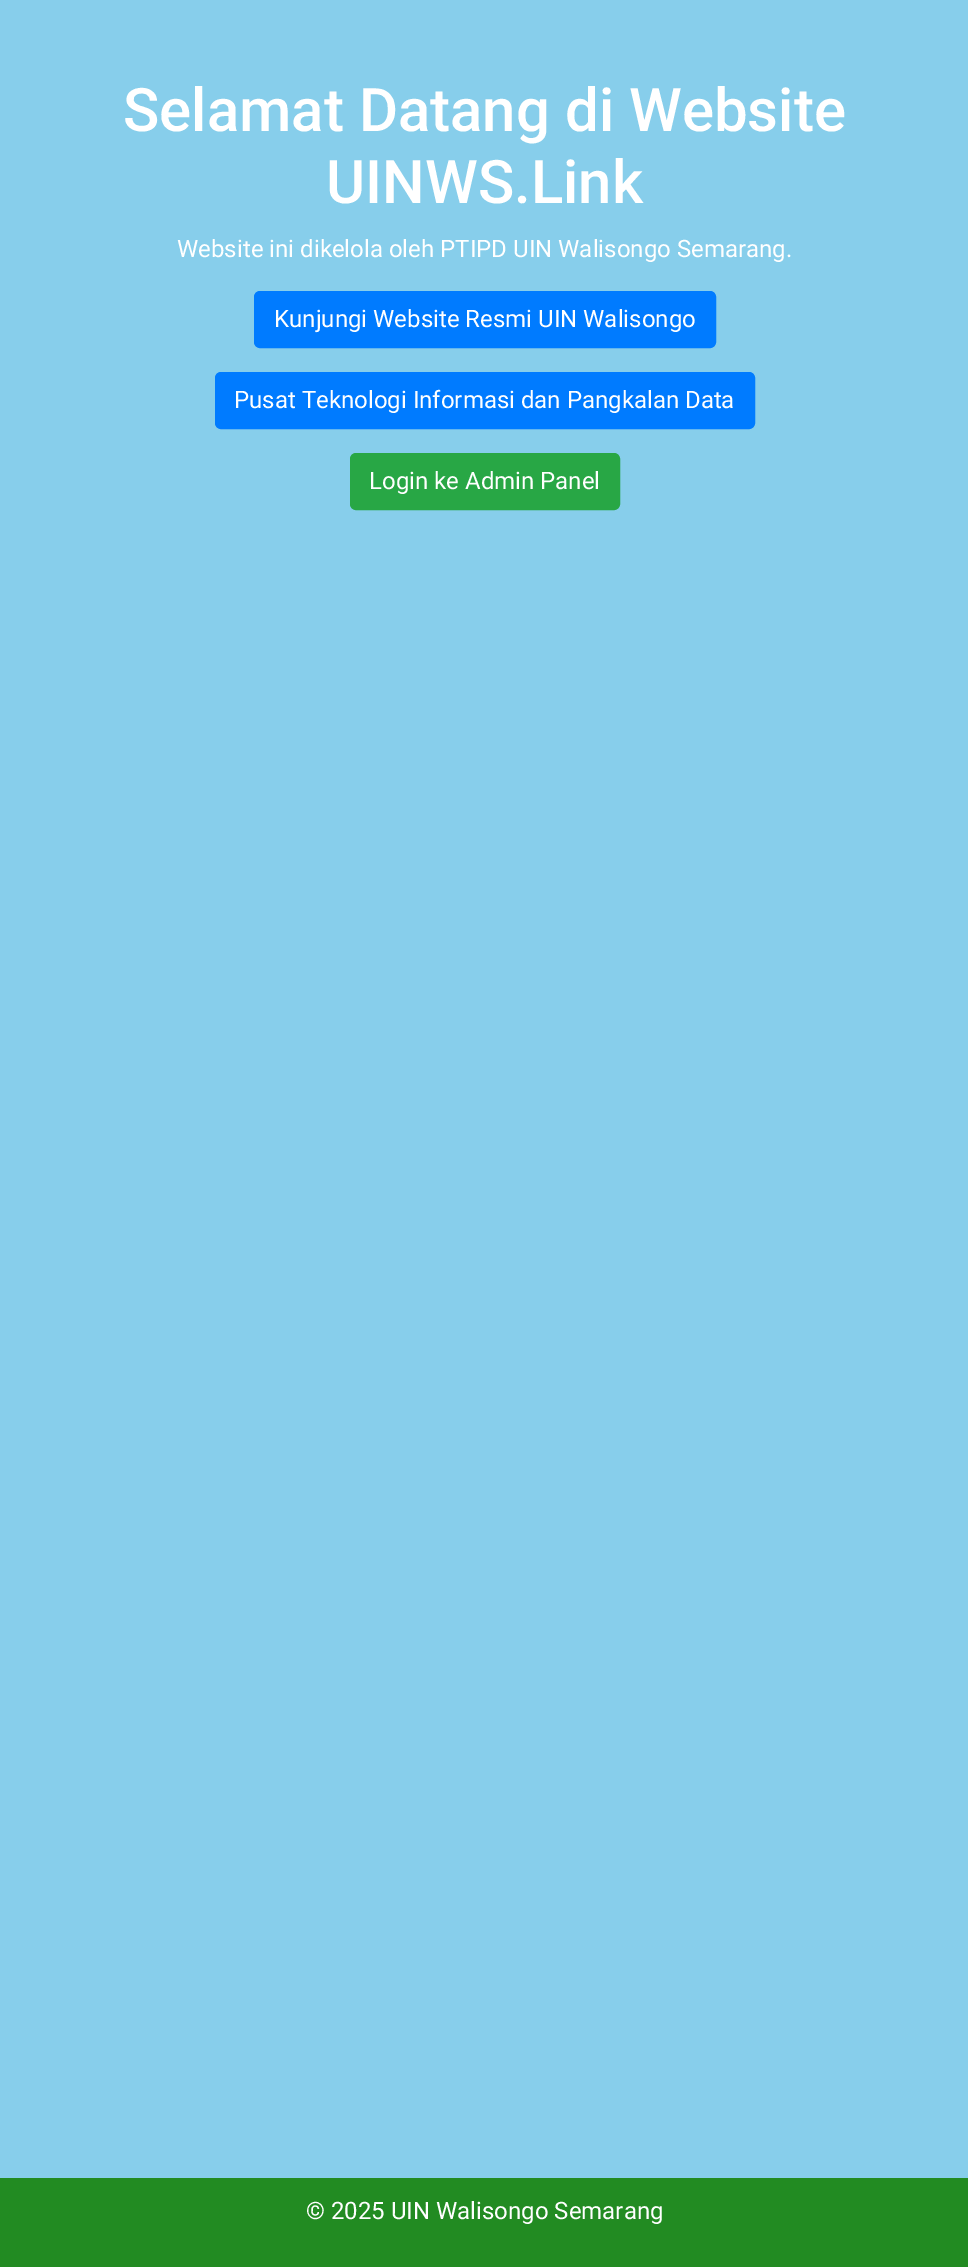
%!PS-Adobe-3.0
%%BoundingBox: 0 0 968 2267
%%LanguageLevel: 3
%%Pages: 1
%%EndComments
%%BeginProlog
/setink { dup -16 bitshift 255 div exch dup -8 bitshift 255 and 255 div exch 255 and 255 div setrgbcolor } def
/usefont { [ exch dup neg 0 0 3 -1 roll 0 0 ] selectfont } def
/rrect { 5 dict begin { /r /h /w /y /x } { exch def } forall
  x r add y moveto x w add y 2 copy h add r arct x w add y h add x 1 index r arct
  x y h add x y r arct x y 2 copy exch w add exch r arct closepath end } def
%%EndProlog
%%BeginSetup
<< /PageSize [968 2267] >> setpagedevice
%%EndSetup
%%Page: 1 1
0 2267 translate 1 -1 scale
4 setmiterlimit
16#87CEEB setink
0 0 968 2267 rectfill
/Roboto-Medium 60 usefont
16#FFFFFF setink
123 131 moveto (Selamat Datang di Website) show
326 203 moveto (UINWS.Link) show
/Roboto-Regular 24 usefont
177 257 moveto (Website ini dikelola oleh PTIPD UIN Walisongo Semarang.) show
16#007BFF setink
255 292 460 55 5 rrect gsave fill grestore
2 setlinewidth
stroke
16#FFFFFF setink
274 327 moveto (Kunjungi Website Resmi UIN Walisongo) show
16#007BFF setink
216 373 538 55 5 rrect gsave fill grestore
stroke
16#FFFFFF setink
234 408 moveto (Pusat Teknologi Informasi dan Pangkalan Data) show
16#28A745 setink
351 454 268 55 5 rrect gsave fill grestore
stroke
16#FFFFFF setink
369 489 moveto (Login ke Admin Panel) show
16#228B22 setink
0 2178 968 89 rectfill
16#FFFFFF setink
306 2219 moveto (© 2025 UIN Walisongo Semarang) show
showpage
%%EOF
